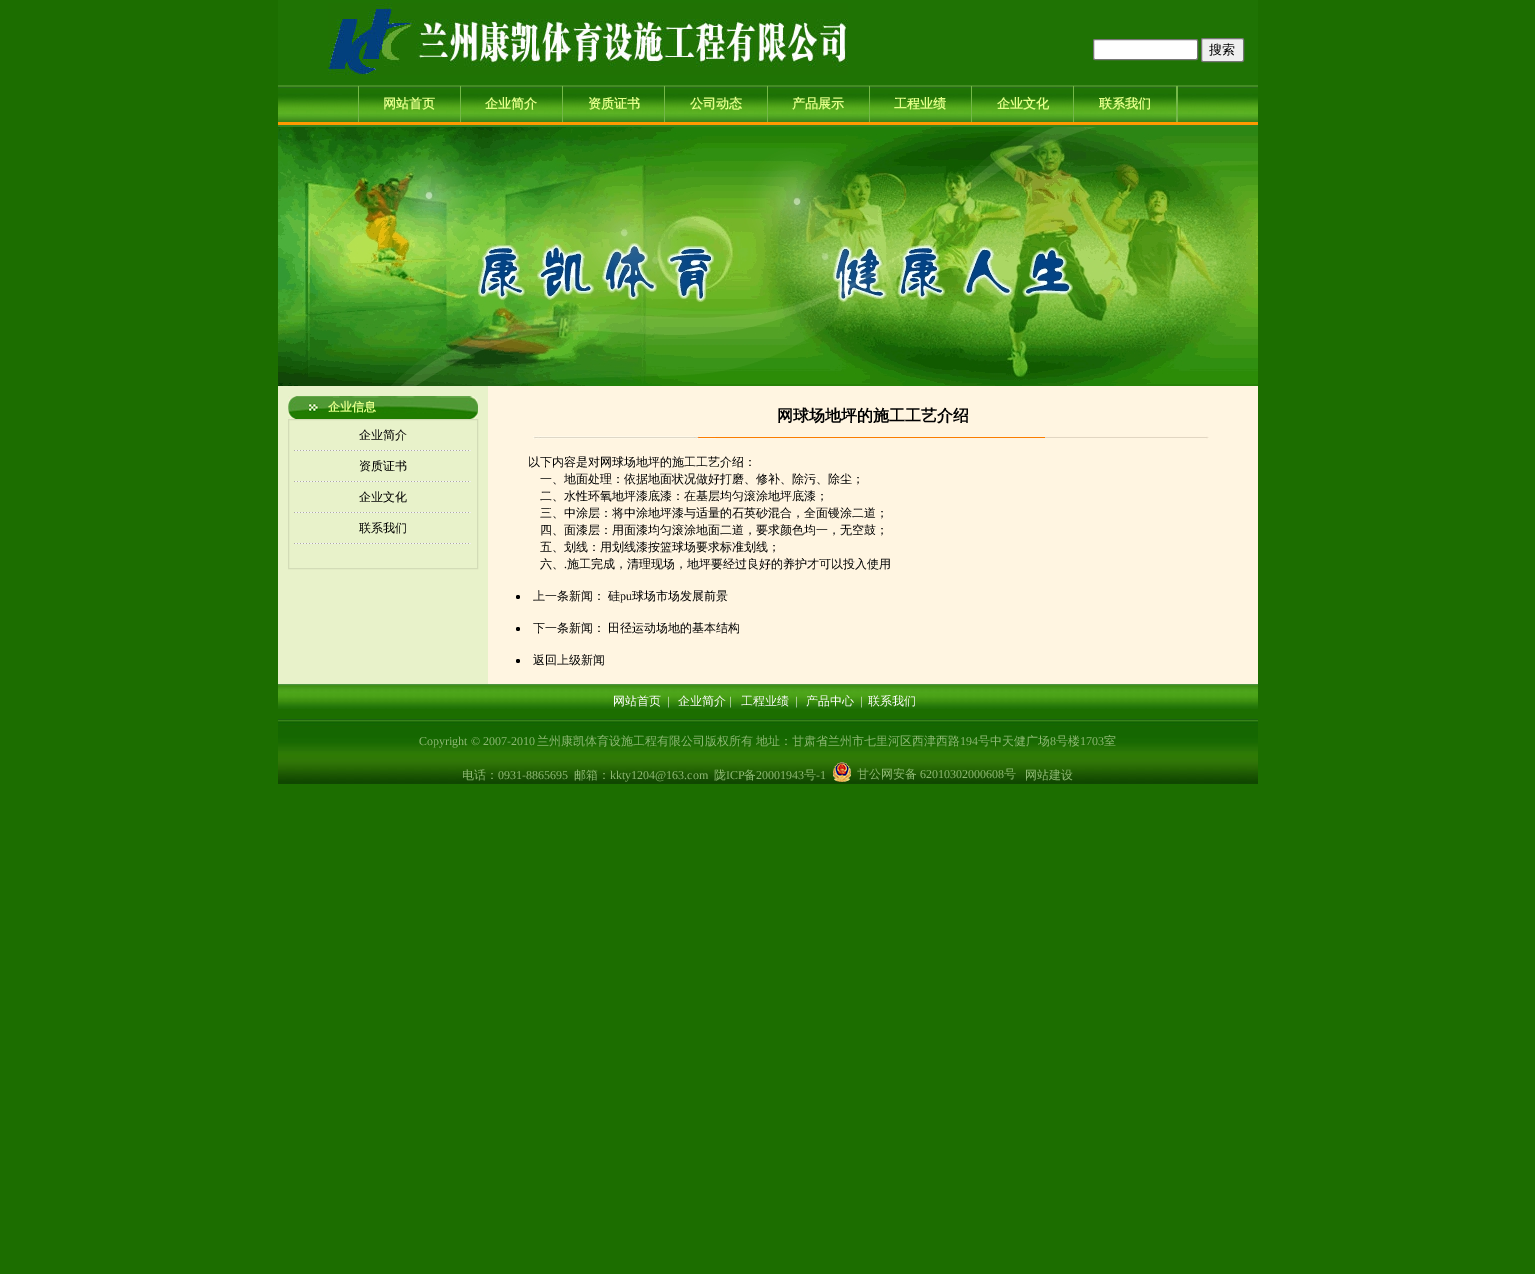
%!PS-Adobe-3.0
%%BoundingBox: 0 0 1535 1274
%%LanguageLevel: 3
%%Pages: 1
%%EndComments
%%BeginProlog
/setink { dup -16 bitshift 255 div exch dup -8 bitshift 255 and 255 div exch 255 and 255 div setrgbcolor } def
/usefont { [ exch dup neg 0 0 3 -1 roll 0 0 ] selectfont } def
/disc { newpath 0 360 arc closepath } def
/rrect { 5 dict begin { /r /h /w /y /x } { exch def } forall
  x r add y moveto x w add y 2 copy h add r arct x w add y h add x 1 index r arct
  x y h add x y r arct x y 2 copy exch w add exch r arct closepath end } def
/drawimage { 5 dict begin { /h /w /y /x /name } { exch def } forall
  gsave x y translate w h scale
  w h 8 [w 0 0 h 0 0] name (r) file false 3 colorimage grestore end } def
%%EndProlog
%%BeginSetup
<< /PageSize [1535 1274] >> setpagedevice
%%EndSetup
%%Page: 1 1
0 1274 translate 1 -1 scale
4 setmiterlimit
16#1C6E00 setink
0 0 1535 1274 rectfill
16#1F7304 setink
278 0 980 85 rectfill
(img1.raw) 328 3 520 72 drawimage
16#FFFFFF setink
1093.5 39.5 104 20 1.5 rrect gsave fill grestore
16#767676 setink
stroke
16#EFEFEF setink
1201.5 38.5 42 23 1.5 rrect gsave fill grestore
16#767676 setink
stroke
/WenQuanYiZenHei-Medium 13 usefont
16#000000 setink
1209 54 moveto (搜索) show
(img2.raw) 278 85 980 41 drawimage
(img3.raw) 278 86 980 36 drawimage
16#FF9900 setink
278 122 980 3 rectfill
16#74B848 setink
358 86 1 36 rectfill
/WenQuanYiZenHei-Bold 13 usefont
16#E2FF89 setink
383 108 moveto (网站首页) show
16#74B848 setink
460 86 1 36 rectfill
16#E2FF89 setink
485 108 moveto (企业简介) show
16#74B848 setink
562 86 1 36 rectfill
16#E2FF89 setink
588 108 moveto (资质证书) show
16#74B848 setink
664 86 1 36 rectfill
16#E2FF89 setink
690 108 moveto (公司动态) show
16#74B848 setink
767 86 1 36 rectfill
16#E2FF89 setink
792 108 moveto (产品展示) show
16#74B848 setink
869 86 1 36 rectfill
16#E2FF89 setink
894 108 moveto (工程业绩) show
16#74B848 setink
971 86 1 36 rectfill
16#E2FF89 setink
997 108 moveto (企业文化) show
16#74B848 setink
1073 86 1 36 rectfill
16#E2FF89 setink
1099 108 moveto (联系我们) show
16#74B848 setink
1176 86 2 36 rectfill
(img4.raw) 278 126 980 260 drawimage
16#FFF5E1 setink
488 386 770 298 rectfill
16#E8F2CA setink
278 386 210 298 rectfill
(img5.raw) 288 396 190 23 drawimage
/WenQuanYiZenHei-Bold 12 usefont
16#E2FF89 setink
328 411 moveto (企业信息) show
16#D3DCB7 setink
288.5 419.5 189 149 rectstroke
/WenQuanYiZenHei-Medium 12 usefont
16#000000 setink
359 439 moveto (企业简介) show
(img6.raw) 294 450 177 1 drawimage
359 470 moveto (资质证书) show
(img6.raw) 294 481 177 1 drawimage
359 501 moveto (企业文化) show
(img6.raw) 294 512 177 1 drawimage
359 532 moveto (联系我们) show
(img6.raw) 294 543 177 1 drawimage
/WenQuanYiZenHei-Bold 16 usefont
777 421 moveto (网球场地坪的施工工艺介绍) show
(img7.raw) 533 436 676 3 drawimage
/WenQuanYiZenHei-Medium 12 usefont
[
    [(以下内容是对网球场地坪的施工工艺介绍：) 528 466]
    [(一、地面处理：依据地面状况做好打磨、修补、除污、除尘；) 540 483]
    [(二、水性环氧地坪漆底漆：在基层均匀滚涂地坪底漆；) 540 500]
    [(三、中涂层：将中涂地坪漆与适量的石英砂混合，全面镘涂二道；) 540 517]
    [(四、面漆层：用面漆均匀滚涂地面二道，要求颜色均一，无空鼓；) 540 534]
    [(五、划线：用划线漆按篮球场要求标准划线；) 540 551]
    [(六、) 540 568]
] { aload pop moveto show } forall
/LiberationSerif-Regular 12 usefont
564 568 moveto (.) show
/WenQuanYiZenHei-Medium 12 usefont
567 568 moveto (施工完成，清理现场，地坪要经过良好的养护才可以投入使用) show
518 597 2 disc fill
533 600 moveto (上一条新闻：) show
608 600 moveto (硅) show
/LiberationSerif-Regular 12 usefont
620 600 moveto (pu) show
/WenQuanYiZenHei-Medium 12 usefont
632 600 moveto (球场市场发展前景) show
518 629 2 disc fill
533 632 moveto (下一条新闻：) show
608 632 moveto (田径运动场地的基本结构) show
518 661 2 disc fill
533 664 moveto (返回上级新闻) show
(img8.raw) 278 684 980 25 drawimage
16#FFFFFF setink
613 705 moveto (网站首页) show
/LiberationSerif-Regular 12 usefont
667 705 moveto (|) show
/WenQuanYiZenHei-Medium 12 usefont
678 705 moveto (企业简介) show
/LiberationSerif-Regular 12 usefont
729 705 moveto (|) show
/WenQuanYiZenHei-Medium 12 usefont
741 705 moveto (工程业绩) show
/LiberationSerif-Regular 12 usefont
795 705 moveto (|) show
/WenQuanYiZenHei-Medium 12 usefont
806 705 moveto (产品中心) show
/LiberationSerif-Regular 12 usefont
860 705 moveto (|) show
/WenQuanYiZenHei-Medium 12 usefont
868 705 moveto (联系我们) show
(img9.raw) 278 719 980 65 drawimage
/LiberationSerif-Regular 12 usefont
16#8EB973 setink
419 745 moveto (Copyright © 2007-2010) show
/WenQuanYiZenHei-Medium 12 usefont
537 745 moveto (兰州康凯体育设施工程有限公司版权所有) show
756 745 moveto (地址：甘肃省兰州市七里河区西津西路) show
/LiberationSerif-Regular 12 usefont
960 745 moveto (194) show
/WenQuanYiZenHei-Medium 12 usefont
978 745 moveto (号中天健广场) show
/LiberationSerif-Regular 12 usefont
1050 745 moveto (8) show
/WenQuanYiZenHei-Medium 12 usefont
1056 745 moveto (号楼) show
/LiberationSerif-Regular 12 usefont
1080 745 moveto (1703) show
/WenQuanYiZenHei-Medium 12 usefont
1104 745 moveto (室) show
462 779 moveto (电话：) show
/LiberationSerif-Regular 12 usefont
498 779 moveto (0931-8865695) show
/WenQuanYiZenHei-Medium 12 usefont
574 779 moveto (邮箱：) show
/LiberationSerif-Regular 12 usefont
610 779 moveto (kkty1204@163.com) show
/WenQuanYiZenHei-Medium 12 usefont
714 779 moveto (陇) show
/LiberationSerif-Regular 12 usefont
726 779 moveto (ICP) show
/WenQuanYiZenHei-Medium 12 usefont
744 779 moveto (备) show
/LiberationSerif-Regular 12 usefont
756 779 moveto (20001943) show
/WenQuanYiZenHei-Medium 12 usefont
804 779 moveto (号) show
/LiberationSerif-Regular 12 usefont
816 779 moveto (-1) show
(img10.raw) 833 762 18 20 drawimage
/WenQuanYiZenHei-Medium 12 usefont
857 778 moveto (甘公网安备) show
/LiberationSerif-Regular 12 usefont
920 778 moveto (62010302000608) show
/WenQuanYiZenHei-Medium 12 usefont
1004 778 moveto (号) show
1025 779 moveto (网站建设) show
showpage
%%EOF
